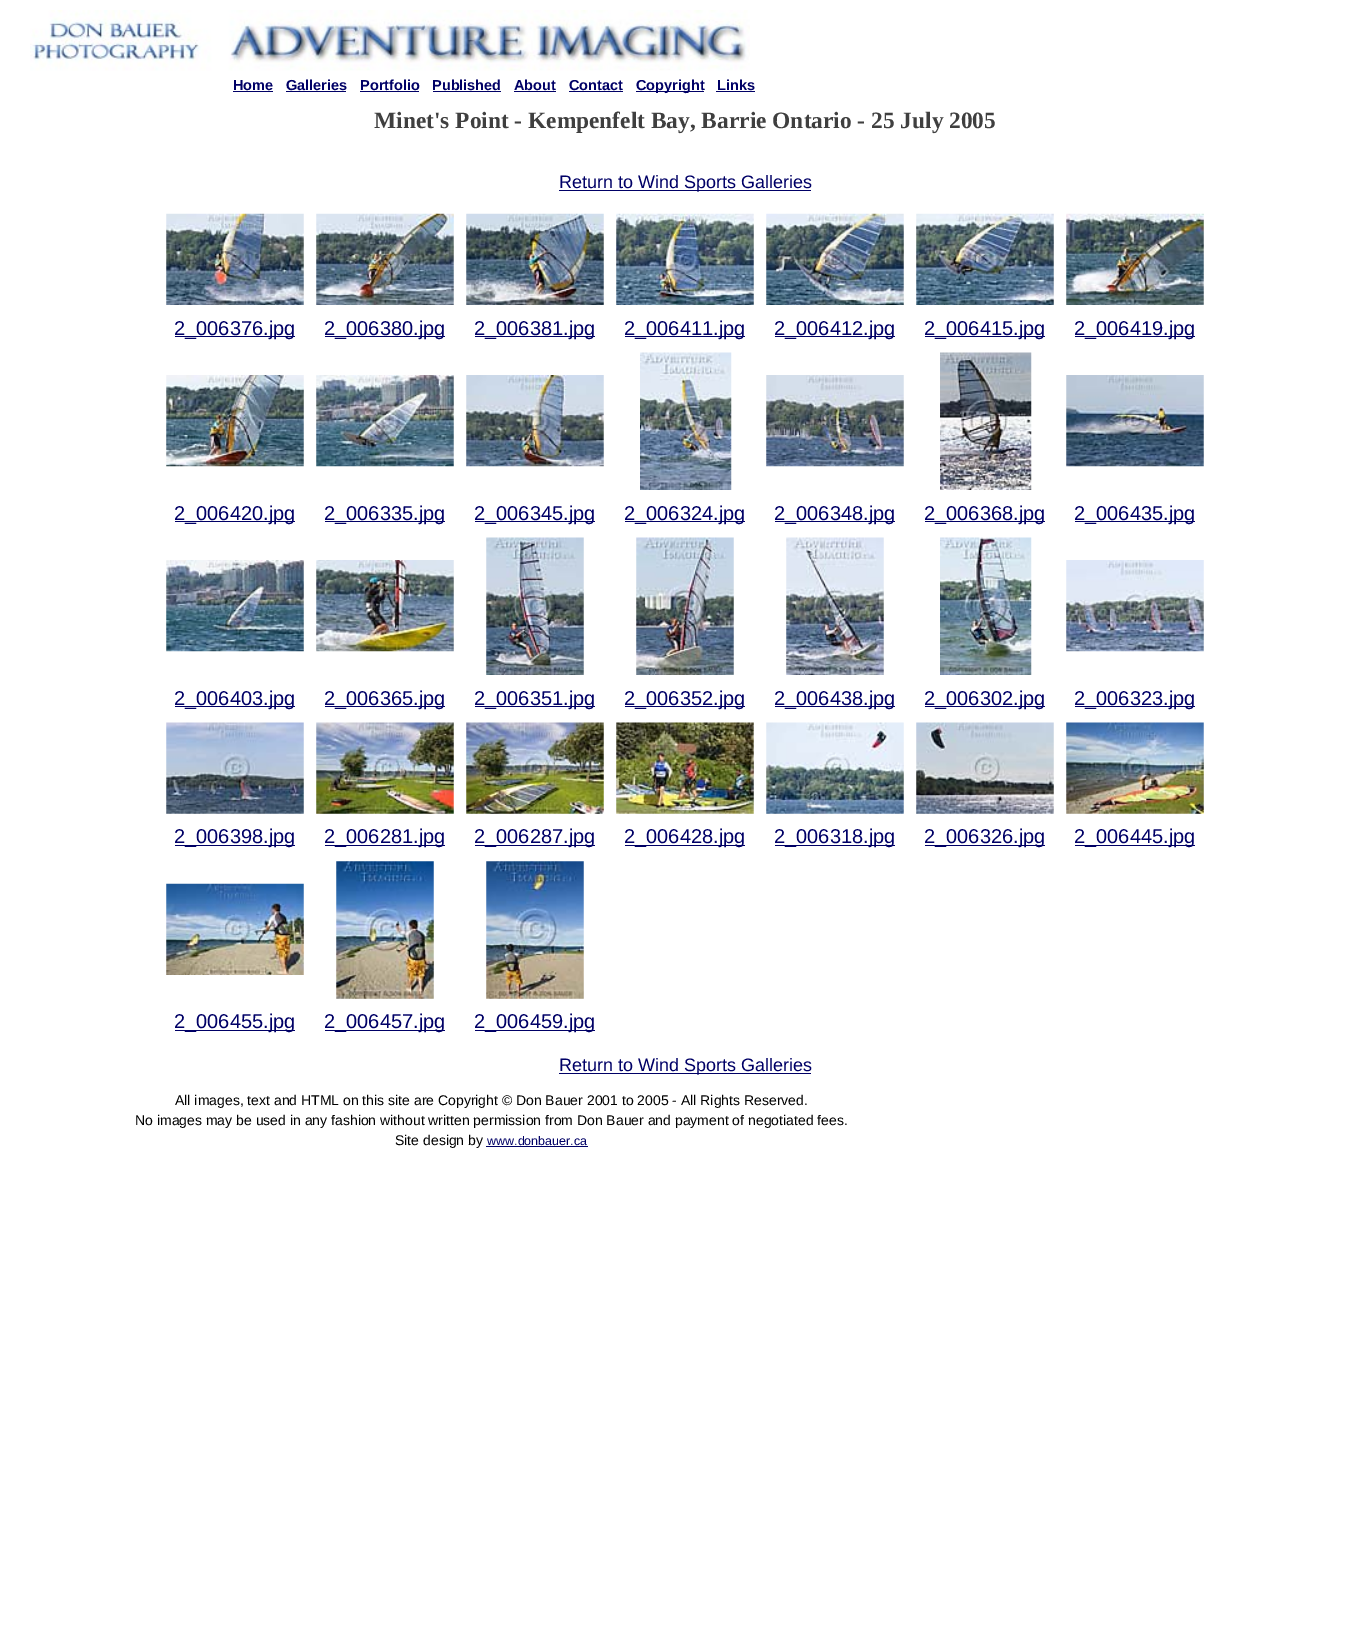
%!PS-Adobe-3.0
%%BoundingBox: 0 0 1370 1641
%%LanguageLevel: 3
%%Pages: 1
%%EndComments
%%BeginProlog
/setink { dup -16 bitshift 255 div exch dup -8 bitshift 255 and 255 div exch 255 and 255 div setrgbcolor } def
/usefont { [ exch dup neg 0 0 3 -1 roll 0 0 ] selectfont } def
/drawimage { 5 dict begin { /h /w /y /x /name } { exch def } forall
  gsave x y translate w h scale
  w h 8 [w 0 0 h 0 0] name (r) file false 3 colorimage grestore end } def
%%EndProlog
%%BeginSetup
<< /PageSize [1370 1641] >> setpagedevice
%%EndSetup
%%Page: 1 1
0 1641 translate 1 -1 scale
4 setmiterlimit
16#FFFFFF setink
0 0 1370 1641 rectfill
(img1.raw) 30 10 720 61 drawimage
/LiberationSans-Bold 14.5 usefont
16#000066 setink
233 90 moveto (Home) show
233 91 40 1 rectfill
286 90 moveto (Galleries) show
286 91 60 1 rectfill
360 90 moveto (Portfolio) show
360 91 59 1 rectfill
432 90 moveto (Published) show
433 91 68 1 rectfill
514 90 moveto (About) show
514 91 42 1 rectfill
569 90 moveto (Contact) show
569 91 54 1 rectfill
636 91 68 1 rectfill
636 90 moveto (Copyright) show
717 90 moveto (Links) show
716 91 39 1 rectfill
/LiberationSerif-Bold 23.4 usefont
16#3F3F3F setink
374 128 moveto (Minet's Point - Kempenfelt Bay, Barrie Ontario - 25 July 2005) show
16#000066 setink
559 190 252 1 rectfill
/LiberationSans-Regular 18 usefont
559 188 moveto (Return to Wind Sports Galleries) show
(img2.raw) 166 213 138 92 drawimage
(img3.raw) 316 213 138 92 drawimage
(img4.raw) 466 213 138 92 drawimage
(img5.raw) 616 213 138 92 drawimage
(img6.raw) 766 213 138 92 drawimage
(img7.raw) 916 213 138 92 drawimage
(img8.raw) 1066 213 138 92 drawimage
175 336 120 1 rectfill
/LiberationSans-Regular 20 usefont
174 335 moveto (2_006376.jpg) show
325 336 120 1 rectfill
324 335 moveto (2_006380.jpg) show
475 336 120 1 rectfill
474 335 moveto (2_006381.jpg) show
625 336 120 1 rectfill
624 335 moveto (2_006411.jpg) show
775 336 120 1 rectfill
774 335 moveto (2_006412.jpg) show
925 336 120 1 rectfill
924 335 moveto (2_006415.jpg) show
1075 336 120 1 rectfill
1074 335 moveto (2_006419.jpg) show
(img9.raw) 166 375 138 92 drawimage
(img10.raw) 316 375 138 92 drawimage
(img11.raw) 466 375 138 92 drawimage
(img12.raw) 640 352 92 138 drawimage
(img13.raw) 766 375 138 92 drawimage
(img14.raw) 940 352 92 138 drawimage
(img15.raw) 1066 375 138 92 drawimage
175 521 120 1 rectfill
174 520 moveto (2_006420.jpg) show
325 521 120 1 rectfill
324 520 moveto (2_006335.jpg) show
475 521 120 1 rectfill
474 520 moveto (2_006345.jpg) show
625 521 120 1 rectfill
624 520 moveto (2_006324.jpg) show
775 521 120 1 rectfill
774 520 moveto (2_006348.jpg) show
925 521 120 1 rectfill
924 520 moveto (2_006368.jpg) show
1075 521 120 1 rectfill
1074 520 moveto (2_006435.jpg) show
(img16.raw) 166 560 138 92 drawimage
(img17.raw) 316 560 138 92 drawimage
(img18.raw) 486 537 98 138 drawimage
(img19.raw) 636 537 98 138 drawimage
(img20.raw) 786 537 98 138 drawimage
(img21.raw) 940 537 92 138 drawimage
(img22.raw) 1066 560 138 92 drawimage
175 706 120 1 rectfill
174 705 moveto (2_006403.jpg) show
325 706 120 1 rectfill
324 705 moveto (2_006365.jpg) show
475 706 120 1 rectfill
474 705 moveto (2_006351.jpg) show
625 706 120 1 rectfill
624 705 moveto (2_006352.jpg) show
775 706 120 1 rectfill
774 705 moveto (2_006438.jpg) show
925 706 120 1 rectfill
924 705 moveto (2_006302.jpg) show
1075 706 120 1 rectfill
1074 705 moveto (2_006323.jpg) show
(img23.raw) 166 722 138 92 drawimage
(img24.raw) 316 722 138 92 drawimage
(img25.raw) 466 722 138 92 drawimage
(img26.raw) 616 722 138 92 drawimage
(img27.raw) 766 722 138 92 drawimage
(img28.raw) 916 722 138 92 drawimage
(img29.raw) 1066 722 138 92 drawimage
175 845 120 1 rectfill
174 843 moveto (2_006398.jpg) show
325 845 120 1 rectfill
324 843 moveto (2_006281.jpg) show
475 845 120 1 rectfill
474 843 moveto (2_006287.jpg) show
625 845 120 1 rectfill
624 843 moveto (2_006428.jpg) show
775 845 120 1 rectfill
774 843 moveto (2_006318.jpg) show
925 845 120 1 rectfill
924 843 moveto (2_006326.jpg) show
1075 845 120 1 rectfill
1074 843 moveto (2_006445.jpg) show
(img30.raw) 166 883 138 92 drawimage
(img31.raw) 336 861 98 138 drawimage
(img32.raw) 486 861 98 138 drawimage
175 1030 120 1 rectfill
174 1028 moveto (2_006455.jpg) show
325 1030 120 1 rectfill
324 1028 moveto (2_006457.jpg) show
475 1030 120 1 rectfill
474 1028 moveto (2_006459.jpg) show
559 1073 252 1 rectfill
/LiberationSans-Regular 18 usefont
559 1071 moveto (Return to Wind Sports Galleries) show
/LiberationSans-Regular 14 usefont
16#000000 setink
[
    [(All images, text and HTML on this site are Copyright © Don Bauer 2001 to 2005 - All Rights Reserved.) 175 1105]
    [(No images may be used in any fashion without written permission from Don Bauer and payment of negotiated fees.) 135 1125]
    [(Site design by) 395 1145]
] { aload pop moveto show } forall
/LiberationSans-Regular 12.5 usefont
16#000066 setink
487 1145 moveto (www.donbauer.ca) show
486 1146 102 1 rectfill
showpage
%%EOF
